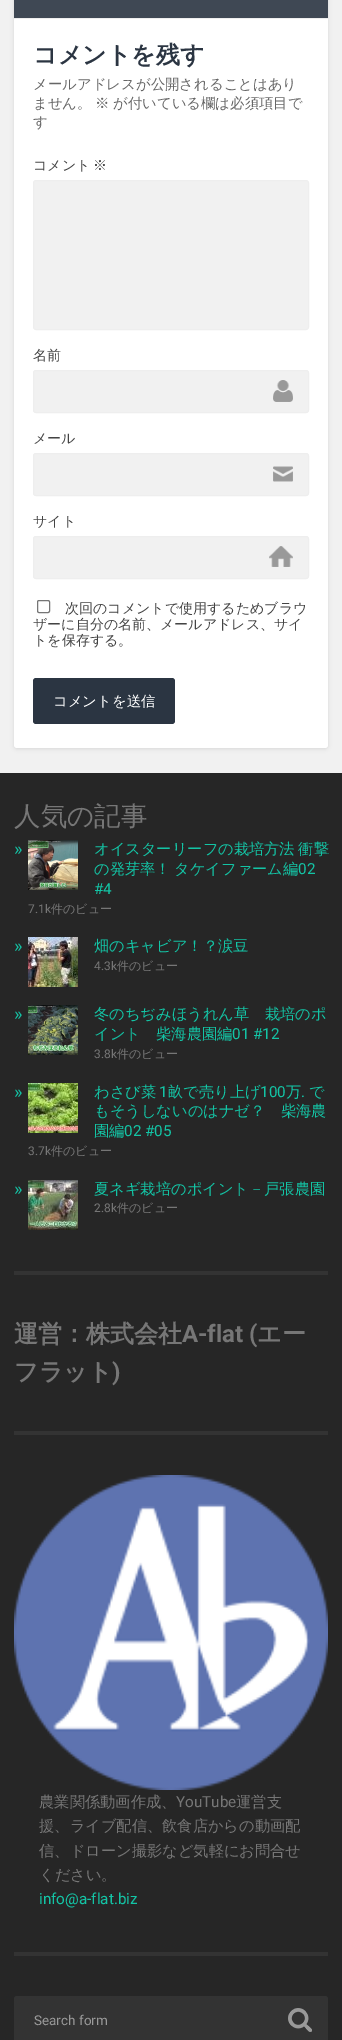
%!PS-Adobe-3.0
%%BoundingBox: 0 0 342 2040
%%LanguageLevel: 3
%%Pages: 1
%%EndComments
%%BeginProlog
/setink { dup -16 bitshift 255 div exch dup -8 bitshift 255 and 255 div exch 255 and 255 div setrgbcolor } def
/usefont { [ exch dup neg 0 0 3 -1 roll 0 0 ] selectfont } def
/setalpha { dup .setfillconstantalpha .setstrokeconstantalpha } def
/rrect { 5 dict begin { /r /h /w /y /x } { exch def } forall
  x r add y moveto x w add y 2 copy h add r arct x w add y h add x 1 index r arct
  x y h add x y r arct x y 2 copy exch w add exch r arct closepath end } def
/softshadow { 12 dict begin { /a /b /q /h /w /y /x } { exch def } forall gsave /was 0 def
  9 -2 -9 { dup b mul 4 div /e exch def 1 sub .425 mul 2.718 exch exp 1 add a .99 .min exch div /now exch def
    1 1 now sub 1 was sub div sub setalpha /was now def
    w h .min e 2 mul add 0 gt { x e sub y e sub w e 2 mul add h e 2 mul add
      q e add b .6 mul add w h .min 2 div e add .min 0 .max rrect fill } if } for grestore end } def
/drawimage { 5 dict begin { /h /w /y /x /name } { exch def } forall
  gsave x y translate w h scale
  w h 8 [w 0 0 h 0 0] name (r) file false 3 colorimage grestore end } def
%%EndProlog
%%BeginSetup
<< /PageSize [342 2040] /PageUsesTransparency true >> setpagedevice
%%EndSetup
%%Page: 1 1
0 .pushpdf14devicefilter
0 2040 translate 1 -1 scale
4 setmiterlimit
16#F1F1F1 setink
0 0 342 2040 rectfill
16#000000 setink
14 -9 314 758 3 2 0.1 softshadow
16#3F4854 setink
14 0 314 18 rectfill
16#FFFFFF setink
14 18 moveto 328 18 lineto 328 745 lineto 328 746.5 326.5 748 325 748 curveto 17 748 lineto 15.5 748 14 746.5 14 745 curveto closepath fill
16#EEEEEE setink
14 18 314 1 rectfill
/WenQuanYiZenHei-Bold 24 usefont
16#2B3542 setink
33 63 moveto (コメントを残す) show
/WenQuanYiZenHei-Medium 14.4 usefont
16#666666 setink
[
    [(メールアドレスが公開されることはあり) 33 89]
    [(ません。) 33 108]
    [(※) 95 108]
    [(が付いている欄は必須項目で) 113 108]
    [(す) 33 127]
] { aload pop moveto show } forall
/WenQuanYiZenHei-Medium 14 usefont
16#444444 setink
33 170 moveto (コメント) show
93 170 moveto (※) show
16#F1F1F1 setink
33.5 180.5 275 149 2.5 rrect gsave fill grestore
16#EEEEEE setink
stroke
16#444444 setink
33 360 moveto (名前) show
16#F1F1F1 setink
33 370 276 43 3 rrect fill
(img1.raw) 273 380 20 22 drawimage
16#EEEEEE setink
33.5 370.5 275 42 2.5 rrect stroke
16#444444 setink
33 443 moveto (メール) show
16#F1F1F1 setink
33 453 276 43 3 rrect fill
(img2.raw) 273 466 20 16 drawimage
16#EEEEEE setink
33.5 453.5 275 42 2.5 rrect stroke
16#444444 setink
33 526 moveto (サイト) show
16#F1F1F1 setink
33 536 276 43 3 rrect fill
(img3.raw) 269 546 24 21 drawimage
16#EEEEEE setink
33.5 536.5 275 42 2.5 rrect stroke
16#767676 setink
37.5 600.5 12 12 1.5 rrect stroke
16#444444 setink
[
    [(次回のコメントで使用するためブラウ) 65 613]
    [(ザーに自分の名前、メールアドレス、サイ) 33 629]
    [(トを保存する。) 33 645]
] { aload pop moveto show } forall
16#2B3542 setink
33 678 142 46 3 rrect fill
/WenQuanYiZenHei-Medium 14.4 usefont
16#FFFFFF setink
53 706 moveto (コメントを送信) show
16#262626 setink
0 773 342 1267 rectfill
/WenQuanYiZenHei-Medium 26.5 usefont
16#767676 setink
14 825 moveto (人気の記事) show
/Roboto-Regular 18 usefont
16#13C4A5 setink
14 855 moveto (») show
(img4.raw) 28 840 50 50 drawimage
/WenQuanYiZenHei-Medium 15.25 usefont
94 854 moveto -1 0 32 (オイスターリーフの栽培方法 衝撃) widthshow
94 874 moveto -1 0 32 (の発芽率！ タケイファーム編) widthshow
/Roboto-Regular 15.25 usefont
298 874 moveto (02) show
94 894 moveto (#4) show
/Roboto-Regular 12 usefont
16#767676 setink
28 913 moveto (7.1k) show
/WenQuanYiZenHei-Medium 12 usefont
51 913 moveto (件のビュー) show
/Roboto-Regular 18 usefont
16#13C4A5 setink
14 952 moveto (») show
(img5.raw) 28 937 50 50 drawimage
/WenQuanYiZenHei-Medium 15.25 usefont
94 951 moveto (畑のキャビア！？涙豆) show
/Roboto-Regular 12 usefont
16#767676 setink
94 970 moveto (4.3k) show
/WenQuanYiZenHei-Medium 12 usefont
117 970 moveto (件のビュー) show
/Roboto-Regular 18 usefont
16#13C4A5 setink
14 1020 moveto (») show
(img6.raw) 28 1005 50 50 drawimage
/WenQuanYiZenHei-Medium 15.25 usefont
94 1019 moveto (冬のちぢみほうれん草　栽培のポ) show
94 1039 moveto (イント　柴海農園編) show
/Roboto-Regular 15.25 usefont
232 1039 moveto (01 #12) show
/Roboto-Regular 12 usefont
16#767676 setink
94 1058 moveto (3.8k) show
/WenQuanYiZenHei-Medium 12 usefont
117 1058 moveto (件のビュー) show
/Roboto-Regular 18 usefont
16#13C4A5 setink
14 1098 moveto (») show
(img7.raw) 28 1083 50 50 drawimage
/WenQuanYiZenHei-Medium 15.25 usefont
94 1097 moveto (わさび菜) show
/Roboto-Regular 15.25 usefont
159 1097 moveto (1) show
/WenQuanYiZenHei-Medium 15.25 usefont
168 1097 moveto (畝で売り上げ) show
/Roboto-Regular 15.25 usefont
260 1097 moveto (100) show
/WenQuanYiZenHei-Medium 15.25 usefont
286 1097 moveto (万) show
/Roboto-Regular 15.25 usefont
301 1097 moveto (.) show
/WenQuanYiZenHei-Medium 15.25 usefont
[
    [(で) 309 1097]
    [(もそうしないのはナゼ？　柴海農) 94 1116]
    [(園編) 94 1136]
] { aload pop moveto show } forall
/Roboto-Regular 15.25 usefont
124 1136 moveto (02 #05) show
/Roboto-Regular 12 usefont
16#767676 setink
28 1155 moveto (3.7k) show
/WenQuanYiZenHei-Medium 12 usefont
51 1155 moveto (件のビュー) show
/Roboto-Regular 18 usefont
16#13C4A5 setink
14 1195 moveto (») show
(img8.raw) 28 1180 50 50 drawimage
/WenQuanYiZenHei-Medium 15.25 usefont
94 1194 moveto (夏ネギ栽培のポイント－戸張農園) show
/Roboto-Regular 12 usefont
16#767676 setink
94 1212 moveto (2.8k) show
/WenQuanYiZenHei-Medium 12 usefont
117 1212 moveto (件のビュー) show
16#333333 setink
14 1271 314 4 rectfill
/WenQuanYiZenHei-Bold 24 usefont
16#767676 setink
14 1342 moveto (運営：株式会社) show
/Roboto-Bold 24 usefont
182 1342 moveto (A-flat \() show
/WenQuanYiZenHei-Bold 24 usefont
257 1342 moveto (エー) show
14 1380 moveto (フラット) show
/Roboto-Bold 24 usefont
112 1380 moveto (\)) show
16#333333 setink
14 1431 314 4 rectfill
(img9.raw) 14 1475 314 315 drawimage
/WenQuanYiZenHei-Medium 15.25 usefont
16#767676 setink
39 1807 moveto (農業関係動画作成、) show
/Roboto-Regular 15.25 usefont
176 1807 moveto (YouTube) show
/WenQuanYiZenHei-Medium 15.25 usefont
[
    [(運営支) 236 1807]
    [(援、ライブ配信、飲食店からの動画配) 39 1831]
    [(信、ドローン撮影など気軽にお問合せ) 39 1856]
    [(ください。) 39 1880]
] { aload pop moveto show } forall
/Roboto-Regular 15.25 usefont
16#13C4A5 setink
39 1904 moveto (info@a-flat.biz) show
16#333333 setink
14 1952 314 4 rectfill
14 1996 314 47 3 rrect fill
/Roboto-Regular 13.5 usefont
16#999999 setink
34 2025 moveto (Search form) show
(img10.raw) 288 2008 24 24 drawimage
.poppdf14devicefilter showpage
%%EOF
